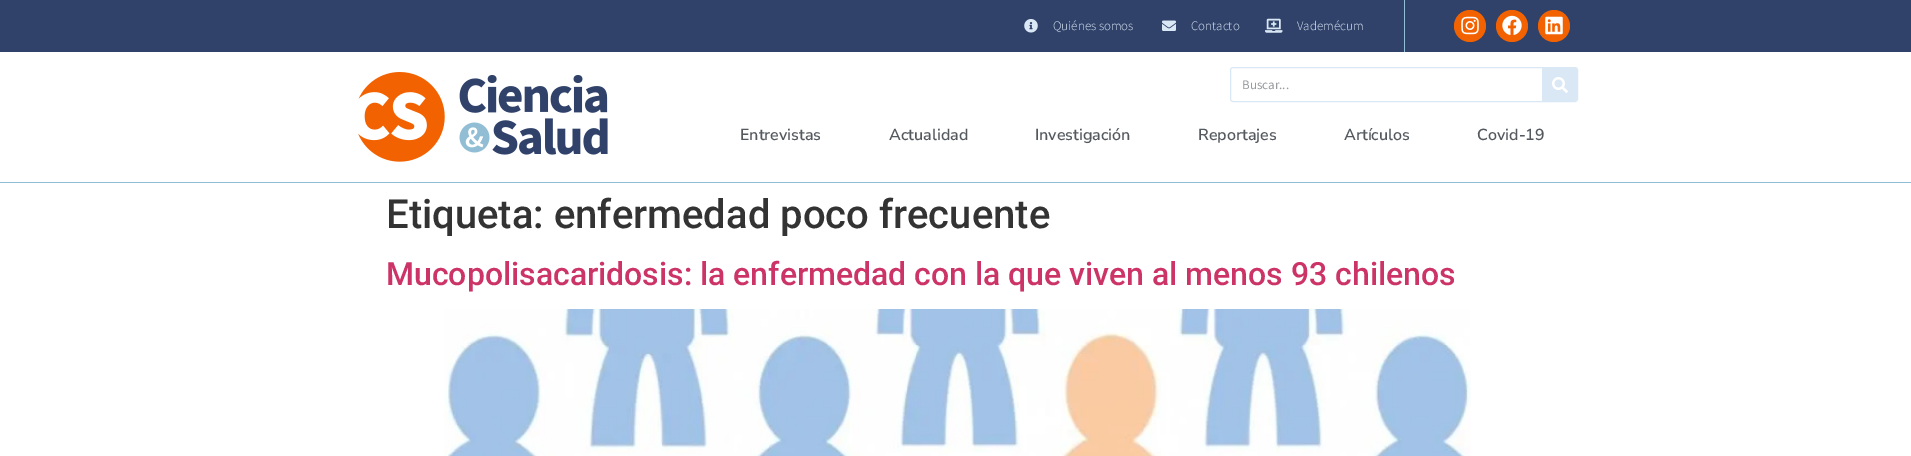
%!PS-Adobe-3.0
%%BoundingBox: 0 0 1911 456
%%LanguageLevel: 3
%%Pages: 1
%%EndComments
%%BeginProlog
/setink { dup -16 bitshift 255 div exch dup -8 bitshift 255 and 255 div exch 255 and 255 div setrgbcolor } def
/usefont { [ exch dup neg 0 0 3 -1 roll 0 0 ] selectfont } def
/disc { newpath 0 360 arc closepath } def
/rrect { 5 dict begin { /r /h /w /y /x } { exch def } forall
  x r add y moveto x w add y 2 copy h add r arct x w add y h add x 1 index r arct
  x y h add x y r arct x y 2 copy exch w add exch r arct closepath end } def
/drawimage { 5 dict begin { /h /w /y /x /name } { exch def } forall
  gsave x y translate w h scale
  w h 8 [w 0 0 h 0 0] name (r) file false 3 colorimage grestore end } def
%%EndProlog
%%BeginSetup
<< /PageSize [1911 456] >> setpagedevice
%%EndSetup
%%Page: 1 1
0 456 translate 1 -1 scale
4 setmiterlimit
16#FFFFFF setink
0 0 1911 456 rectfill
16#30426A setink
0 0 1911 52 rectfill
(img1.raw) 1024 19 14 14 drawimage
/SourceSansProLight-Light 13 usefont
16#DAE8F5 setink
1053 30 moveto (Quiénes somos) show
(img2.raw) 1162 20 14 11 drawimage
1191 30 moveto (Contacto) show
(img3.raw) 1265 18 18 15 drawimage
1297 30 moveto (Vademécum) show
16#91BED4 setink
1404 0 1 52 rectfill
16#F26201 setink
1470 26 16 disc fill
(img4.raw) 1461 16 18 19 drawimage
1512 26 16 disc fill
(img5.raw) 1502 15 20 20 drawimage
1554 26 16 disc fill
(img6.raw) 1545 16 18 19 drawimage
16#91BED4 setink
0 182 1911 1 rectfill
(img7.raw) 358 72 250 90 drawimage
16#DAE8F5 setink
1230.5 67.5 347 34 2.5 rrect stroke
/SourceSansPro-Regular 13 usefont
16#989B9F setink
1242 89 moveto (Buscar...) show
16#DAE8F5 setink
1542 68 moveto 1575 68 lineto 1576 68 1577 69 1577 70 curveto 1577 99 lineto 1577 100 1576 101 1575 101 curveto 1542 101 lineto closepath fill
(img8.raw) 1552 77 16 16 drawimage
/NunitoSans-SemiBold 16 usefont
16#54595F setink
[
    [(Entrevistas) 740 140]
    [(Actualidad) 889 140]
    [(Investigación) 1035 140]
    [(Reportajes) 1198 140]
    [(Artículos) 1344 140]
    [(Covid-19) 1477 140]
] { aload pop moveto show } forall
/Roboto-Medium 40 usefont
16#333333 setink
386 228 moveto (Etiqueta: enfermedad poco frecuente) show
/Roboto-Medium 32 usefont
16#CC3366 setink
386 285 moveto (Mucopolisacaridosis: la enfermedad con la que viven al menos 93 chilenos) show
(img9.raw) 444 309 1027 147 drawimage
showpage
%%EOF
